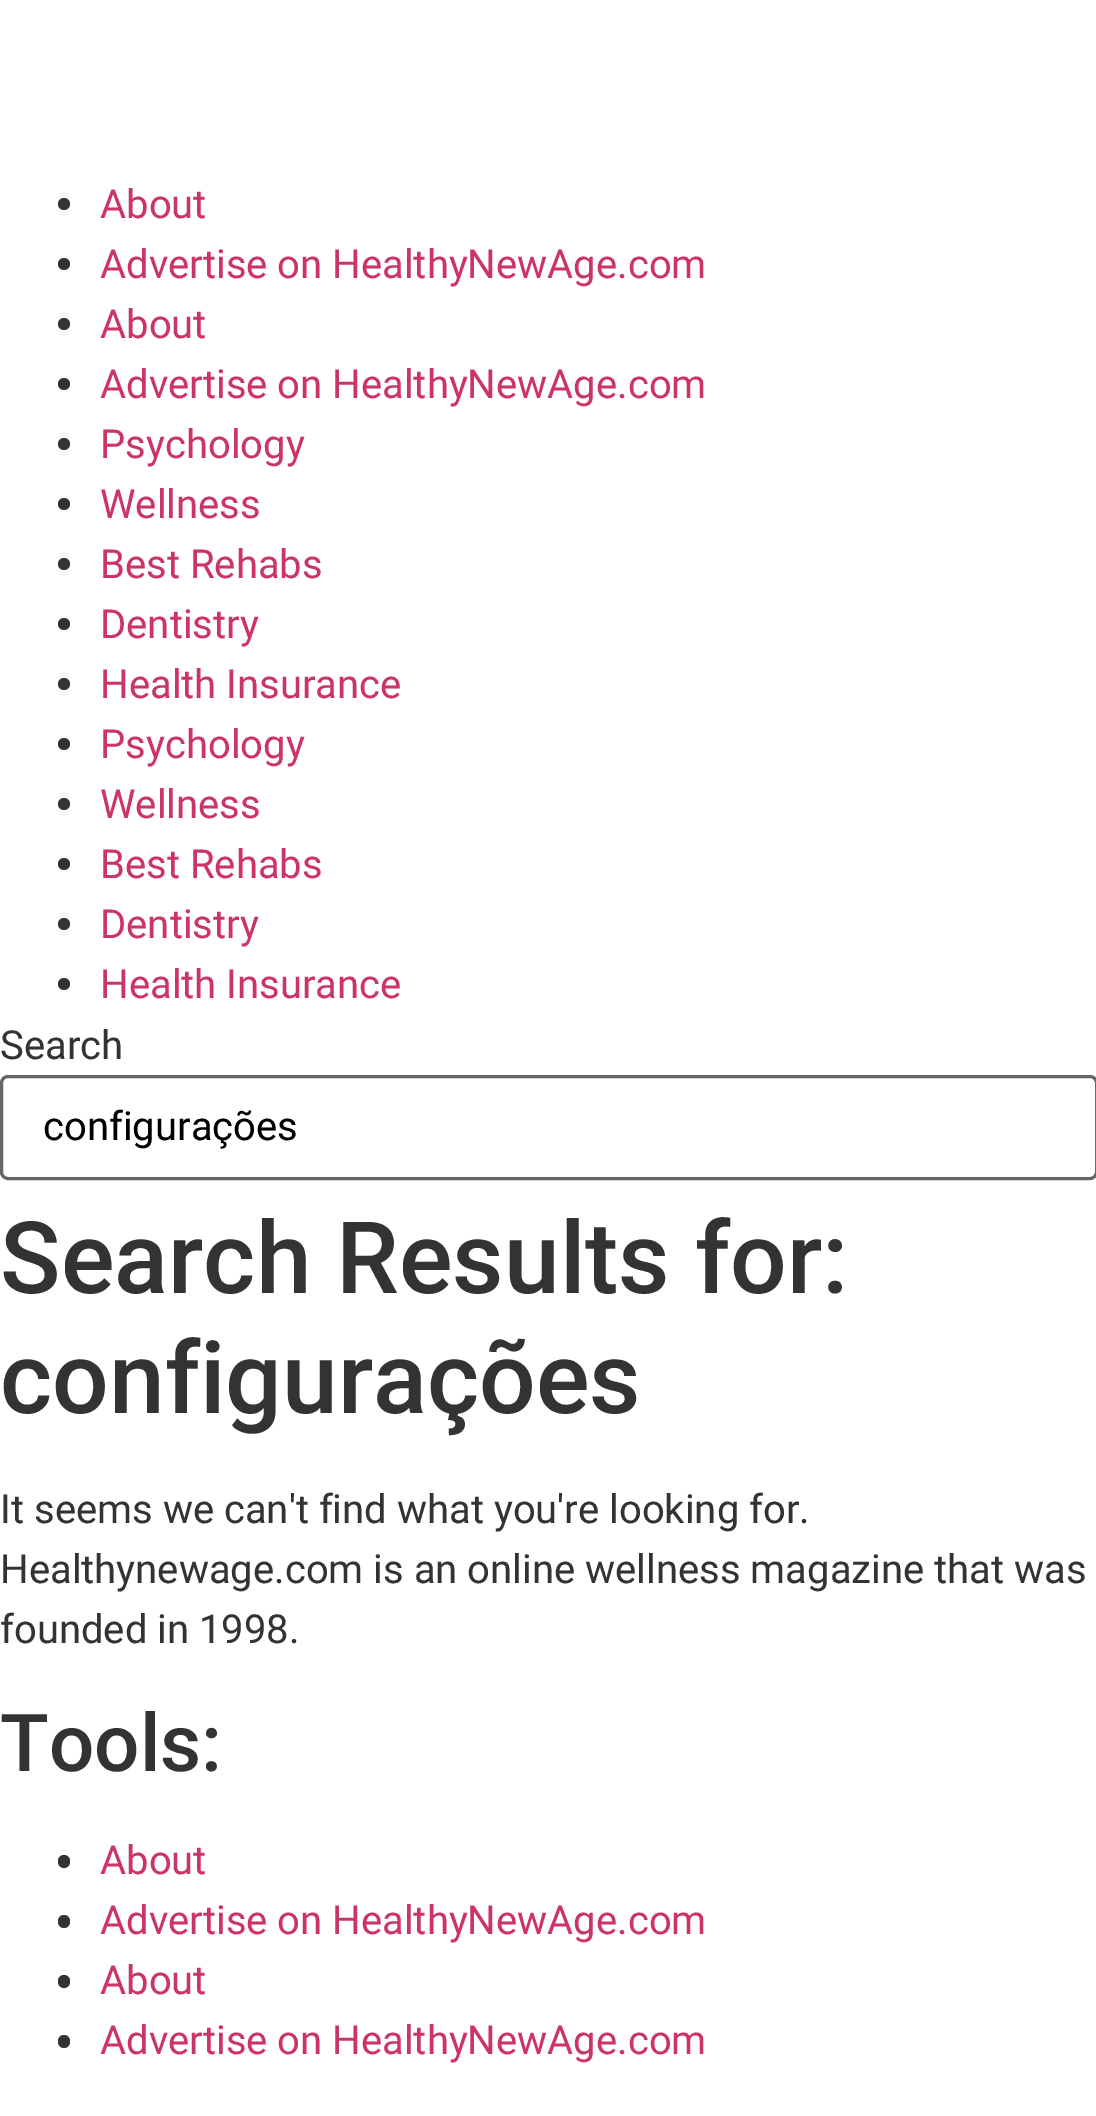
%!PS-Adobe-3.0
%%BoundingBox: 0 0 1096 2116
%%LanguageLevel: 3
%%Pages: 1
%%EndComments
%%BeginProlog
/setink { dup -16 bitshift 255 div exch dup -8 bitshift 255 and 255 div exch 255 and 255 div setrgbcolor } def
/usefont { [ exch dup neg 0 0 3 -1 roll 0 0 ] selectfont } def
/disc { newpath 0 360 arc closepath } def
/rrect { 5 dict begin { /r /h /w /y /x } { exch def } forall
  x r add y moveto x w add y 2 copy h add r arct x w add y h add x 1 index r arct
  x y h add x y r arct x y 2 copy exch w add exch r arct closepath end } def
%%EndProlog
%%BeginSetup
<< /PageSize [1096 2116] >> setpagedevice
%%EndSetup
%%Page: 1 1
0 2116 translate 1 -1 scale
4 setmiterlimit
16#FFFFFF setink
0 0 1096 2116 rectfill
16#333333 setink
64 204 6 disc fill
/Roboto-Regular 40 usefont
16#CC3366 setink
100 218 moveto (About) show
16#333333 setink
64 264 6 disc fill
16#CC3366 setink
100 278 moveto (Advertise on HealthyNewAge.com) show
16#333333 setink
64 324 6 disc fill
16#CC3366 setink
100 338 moveto (About) show
16#333333 setink
64 384 6 disc fill
16#CC3366 setink
100 398 moveto (Advertise on HealthyNewAge.com) show
16#333333 setink
64 444 6 disc fill
16#CC3366 setink
100 458 moveto (Psychology) show
16#333333 setink
64 504 6 disc fill
16#CC3366 setink
100 518 moveto (Wellness) show
16#333333 setink
64 564 6 disc fill
16#CC3366 setink
100 578 moveto (Best Rehabs) show
16#333333 setink
64 624 6 disc fill
16#CC3366 setink
100 638 moveto (Dentistry) show
16#333333 setink
64 684 6 disc fill
16#CC3366 setink
100 698 moveto (Health Insurance) show
16#333333 setink
64 744 6 disc fill
16#CC3366 setink
100 758 moveto (Psychology) show
16#333333 setink
64 804 6 disc fill
16#CC3366 setink
100 818 moveto (Wellness) show
16#333333 setink
64 864 6 disc fill
16#CC3366 setink
100 878 moveto (Best Rehabs) show
16#333333 setink
64 924 6 disc fill
16#CC3366 setink
100 938 moveto (Dentistry) show
16#333333 setink
64 984 6 disc fill
16#CC3366 setink
100 998 moveto (Health Insurance) show
16#333333 setink
0 1059 moveto (Search) show
16#666666 setink
3 setlinewidth
1.5 1076.5 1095 102 6.5 rrect stroke
16#000000 setink
43 1140 moveto (configurações) show
/Roboto-Medium 100 usefont
16#333333 setink
0 1293 moveto (Search Results for:) show
0 1413 moveto (configurações) show
/Roboto-Regular 40 usefont
[
    [(It seems we can't find what you're looking for.) 0 1523]
    [(Healthynewage.com is an online wellness magazine that was) 0 1583]
    [(founded in 1998.) 0 1643]
] { aload pop moveto show } forall
/Roboto-Medium 80 usefont
0 1771 moveto (Tools:) show
58 1855 12 13 6 rrect fill
/Roboto-Regular 40 usefont
16#CC3366 setink
100 1874 moveto (About) show
16#333333 setink
58 1915 12 13 6 rrect fill
16#CC3366 setink
100 1934 moveto (Advertise on HealthyNewAge.com) show
16#333333 setink
58 1975 12 13 6 rrect fill
16#CC3366 setink
100 1994 moveto (About) show
16#333333 setink
58 2035 12 13 6 rrect fill
16#CC3366 setink
100 2054 moveto (Advertise on HealthyNewAge.com) show
showpage
%%EOF
